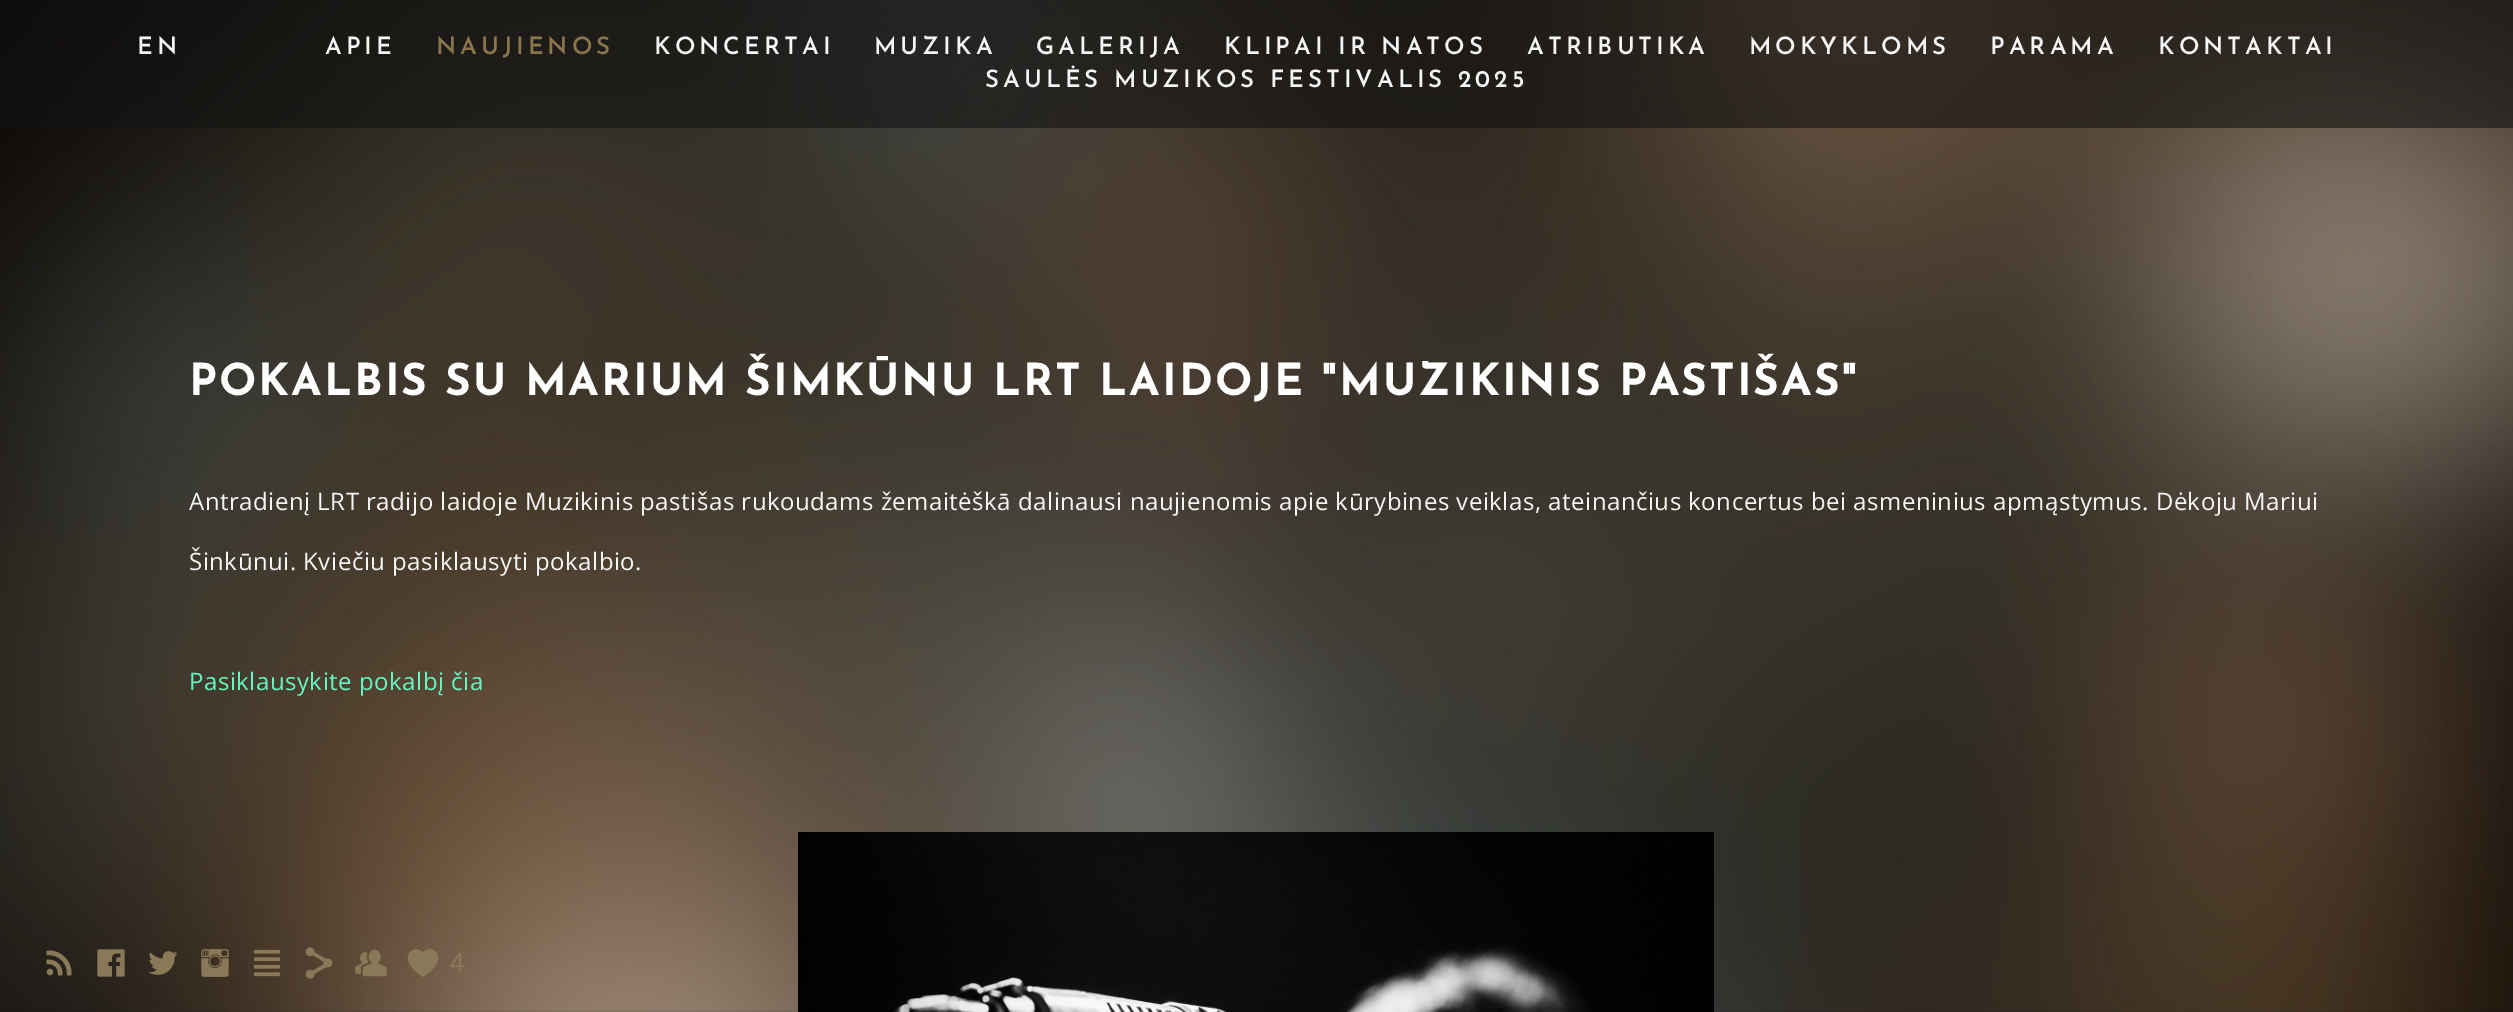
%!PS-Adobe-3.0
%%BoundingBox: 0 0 2513 1012
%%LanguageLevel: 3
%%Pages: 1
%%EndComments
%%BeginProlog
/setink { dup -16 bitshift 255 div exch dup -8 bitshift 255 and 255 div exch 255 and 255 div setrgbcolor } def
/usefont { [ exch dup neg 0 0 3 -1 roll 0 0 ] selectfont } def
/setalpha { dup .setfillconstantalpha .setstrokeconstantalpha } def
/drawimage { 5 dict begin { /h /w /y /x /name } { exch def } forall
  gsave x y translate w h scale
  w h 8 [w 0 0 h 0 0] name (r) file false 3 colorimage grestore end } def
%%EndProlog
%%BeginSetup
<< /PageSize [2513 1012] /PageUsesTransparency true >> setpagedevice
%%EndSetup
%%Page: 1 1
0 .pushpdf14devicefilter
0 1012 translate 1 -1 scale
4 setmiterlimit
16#FFFFFF setink
0 0 2513 1012 rectfill
(img1.raw) 0 0 2513 1012 drawimage
0.6 setalpha
16#121212 setink
0 0 2513 128 rectfill
/JosefinSans-SemiBold 24 usefont
1 setalpha
16#F5F5F5 setink
137 54 moveto 4 0 (EN) ashow
325 54 moveto 4 0 (APIE) ashow
16#8A754D setink
436 54 moveto 4 0 (NAUJIENOS) ashow
16#F5F5F5 setink
654 54 moveto 4 0 (KONCERTAI) ashow
874 54 moveto 4 0 (MUZIKA) ashow
1036 54 moveto 4 0 (GALERIJA) ashow
1224 54 moveto 4 0 (KLIPAI IR NATOS) ashow
1527 54 moveto 4 0 (ATRIBUTIKA) ashow
1749 54 moveto 4 0 (MOKYKLOMS) ashow
1990 54 moveto 4 0 (PARAMA) ashow
2158 54 moveto 4 0 (KONTAKTAI) ashow
985 87 moveto 4 0 (SAULĖS MUZIKOS FESTIVALIS 2025) ashow
/JosefinSans-Bold 44 usefont
16#FFFFFF setink
189 395 moveto 2 0 (POKALBIS SU MARIUM ŠIMKŪNU LRT LAIDOJE "MUZIKINIS PASTIŠAS") ashow
/OpenSans-Regular 24 usefont
16#F5F5F5 setink
189 510 moveto 0.5 0 (Antradienį LRT radijo laidoje Muzikinis pastišas rukoudams žemaitėškā dalinausi naujienomis apie kūrybines veiklas, ateinančius koncertus bei asmeninius apmąstymus. Dėkoju Mariui) ashow
189 570 moveto 0.5 0 (Šinkūnui. Kviečiu pasiklausyti pokalbio.) ashow
16#65F5C3 setink
189 690 moveto 0.5 0 (Pasiklausykite pokalbį čia) ashow
(img2.raw) 798 832 916 180 drawimage
(img3.raw) 46 950 26 26 drawimage
(img4.raw) 97 949 28 28 drawimage
(img5.raw) 148 951 30 24 drawimage
(img6.raw) 201 949 28 28 drawimage
(img7.raw) 253 949 28 28 drawimage
(img8.raw) 305 947 28 32 drawimage
(img9.raw) 355 949 32 28 drawimage
(img10.raw) 407 949 32 28 drawimage
/LiberationSans-Regular 26 usefont
16#8A7958 setink
450 971 moveto (4) show
.poppdf14devicefilter showpage
%%EOF
